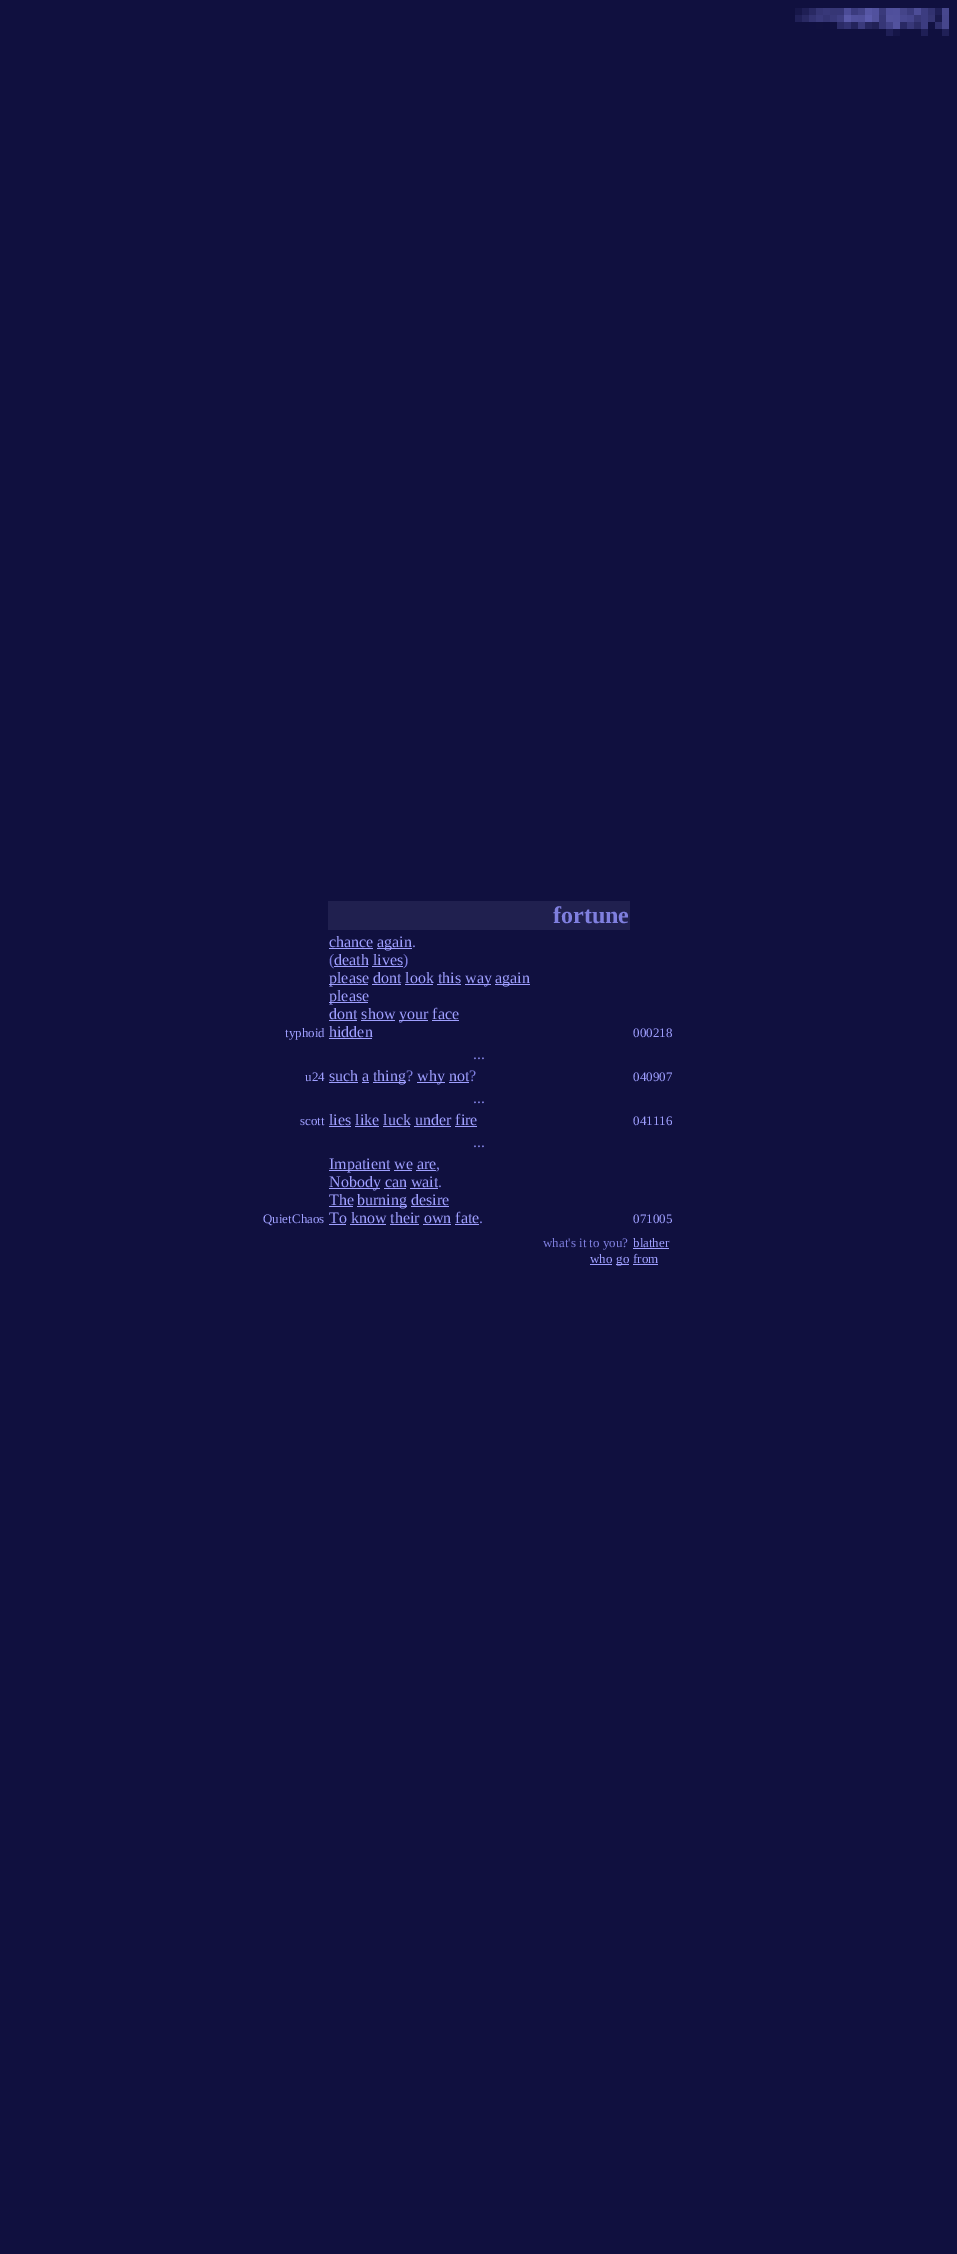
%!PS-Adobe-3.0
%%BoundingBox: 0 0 957 2254
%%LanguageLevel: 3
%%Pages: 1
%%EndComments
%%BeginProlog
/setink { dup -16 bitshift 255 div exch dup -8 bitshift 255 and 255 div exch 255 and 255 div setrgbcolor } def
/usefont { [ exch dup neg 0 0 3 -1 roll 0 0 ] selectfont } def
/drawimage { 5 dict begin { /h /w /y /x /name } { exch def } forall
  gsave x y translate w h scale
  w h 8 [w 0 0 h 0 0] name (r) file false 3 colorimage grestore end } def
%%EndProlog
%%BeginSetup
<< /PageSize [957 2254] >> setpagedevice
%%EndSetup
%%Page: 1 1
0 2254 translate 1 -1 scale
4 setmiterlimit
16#10103F setink
0 0 957 2254 rectfill
(img1.raw) 795 8 154 28 drawimage
16#20204F setink
328 901 302 29 rectfill
/LiberationSerif-Bold 24 usefont
16#7F7FDF setink
553 923 moveto (fortune) show
/LiberationSerif-Regular 13 usefont
16#9F9FFF setink
285 1037 moveto (typhoid) show
/LiberationSerif-Regular 16 usefont
329 947 moveto (chance) show
329 948 44 1 rectfill
377 948 35 1 rectfill
377 947 moveto (again) show
16#7F7FDF setink
412 947 moveto (.) show
329 965 moveto (\() show
16#9F9FFF setink
334 965 moveto (death lives) show
334 966 34 1 rectfill
16#7F7FDF setink
403 965 moveto (\)) show
16#9F9FFF setink
372 966 31 1 rectfill
329 984 39 1 rectfill
329 983 moveto (please dont look this) show
465 984 26 1 rectfill
465 983 moveto (way) show
495 984 35 1 rectfill
495 983 moveto (again) show
[
    [372 984 29 1 16#9F9FFF]
    [405 984 28 1 16#9F9FFF]
    [437 984 24 1 16#9F9FFF]
    [329 1002 39 1 16#9F9FFF]
] { aload pop setink rectfill } forall
329 1001 moveto (please) show
329 1019 moveto (dont show) show
329 1020 28 1 rectfill
399 1020 29 1 rectfill
399 1019 moveto (your face) show
361 1020 34 1 rectfill
432 1020 27 1 rectfill
329 1037 moveto (hidden) show
329 1038 43 1 rectfill
/LiberationSerif-Regular 13 usefont
633 1037 moveto (000218) show
/LiberationSerif-Regular 16 usefont
16#7F7FDF setink
473 1059 moveto (...) show
/LiberationSerif-Regular 13 usefont
16#9F9FFF setink
305 1081 moveto (u24) show
/LiberationSerif-Regular 16 usefont
329 1081 moveto (such a) show
329 1082 29 1 rectfill
373 1082 33 1 rectfill
373 1081 moveto (thing) show
16#7F7FDF setink
406 1081 moveto (?) show
16#9F9FFF setink
417 1082 28 1 rectfill
417 1081 moveto (why not) show
16#7F7FDF setink
469 1081 moveto (?) show
16#9F9FFF setink
362 1082 7 1 rectfill
449 1082 20 1 rectfill
/LiberationSerif-Regular 13 usefont
633 1081 moveto (040907) show
/LiberationSerif-Regular 16 usefont
16#7F7FDF setink
473 1103 moveto (...) show
/LiberationSerif-Regular 13 usefont
16#9F9FFF setink
300 1125 moveto (scott) show
/LiberationSerif-Regular 16 usefont
329 1125 moveto (lies like luck under fire) show
[
    [329 1126 22 1 16#9F9FFF]
    [355 1126 24 1 16#9F9FFF]
    [383 1126 27 1 16#9F9FFF]
    [414 1126 37 1 16#9F9FFF]
    [455 1126 22 1 16#9F9FFF]
] { aload pop setink rectfill } forall
/LiberationSerif-Regular 13 usefont
633 1125 moveto (041116) show
/LiberationSerif-Regular 16 usefont
16#7F7FDF setink
473 1147 moveto (...) show
/LiberationSerif-Regular 13 usefont
16#9F9FFF setink
263 1223 moveto (QuietChaos) show
329 1170 61 1 rectfill
/LiberationSerif-Regular 16 usefont
329 1169 moveto (Impatient we are) show
16#7F7FDF setink
436 1169 moveto (,) show
[
    [394 1170 18 1 16#9F9FFF]
    [416 1170 20 1 16#9F9FFF]
    [329 1188 51 1 16#9F9FFF]
] { aload pop setink rectfill } forall
329 1187 moveto (Nobody can wait) show
16#7F7FDF setink
438 1187 moveto (.) show
16#9F9FFF setink
384 1188 22 1 rectfill
410 1188 28 1 rectfill
329 1205 moveto (The) show
329 1206 24 1 rectfill
357 1206 50 1 rectfill
357 1205 moveto (burning desire) show
411 1206 38 1 rectfill
329 1223 moveto (To know their own fate) show
329 1224 17 1 rectfill
16#7F7FDF setink
479 1223 moveto (.) show
[
    [350 1224 36 1 16#9F9FFF]
    [390 1224 29 1 16#9F9FFF]
    [423 1224 28 1 16#9F9FFF]
    [455 1224 24 1 16#9F9FFF]
] { aload pop setink rectfill } forall
/LiberationSerif-Regular 13 usefont
633 1223 moveto (071005) show
16#7F7FDF setink
543 1247 moveto (what's it to you?) show
16#9F9FFF setink
590 1263 moveto (who) show
590 1264 22 1 rectfill
616 1264 13 1 rectfill
616 1263 moveto (go) show
633 1247 moveto (blather) show
633 1248 36 1 rectfill
633 1263 moveto (from) show
633 1264 25 1 rectfill
showpage
%%EOF
